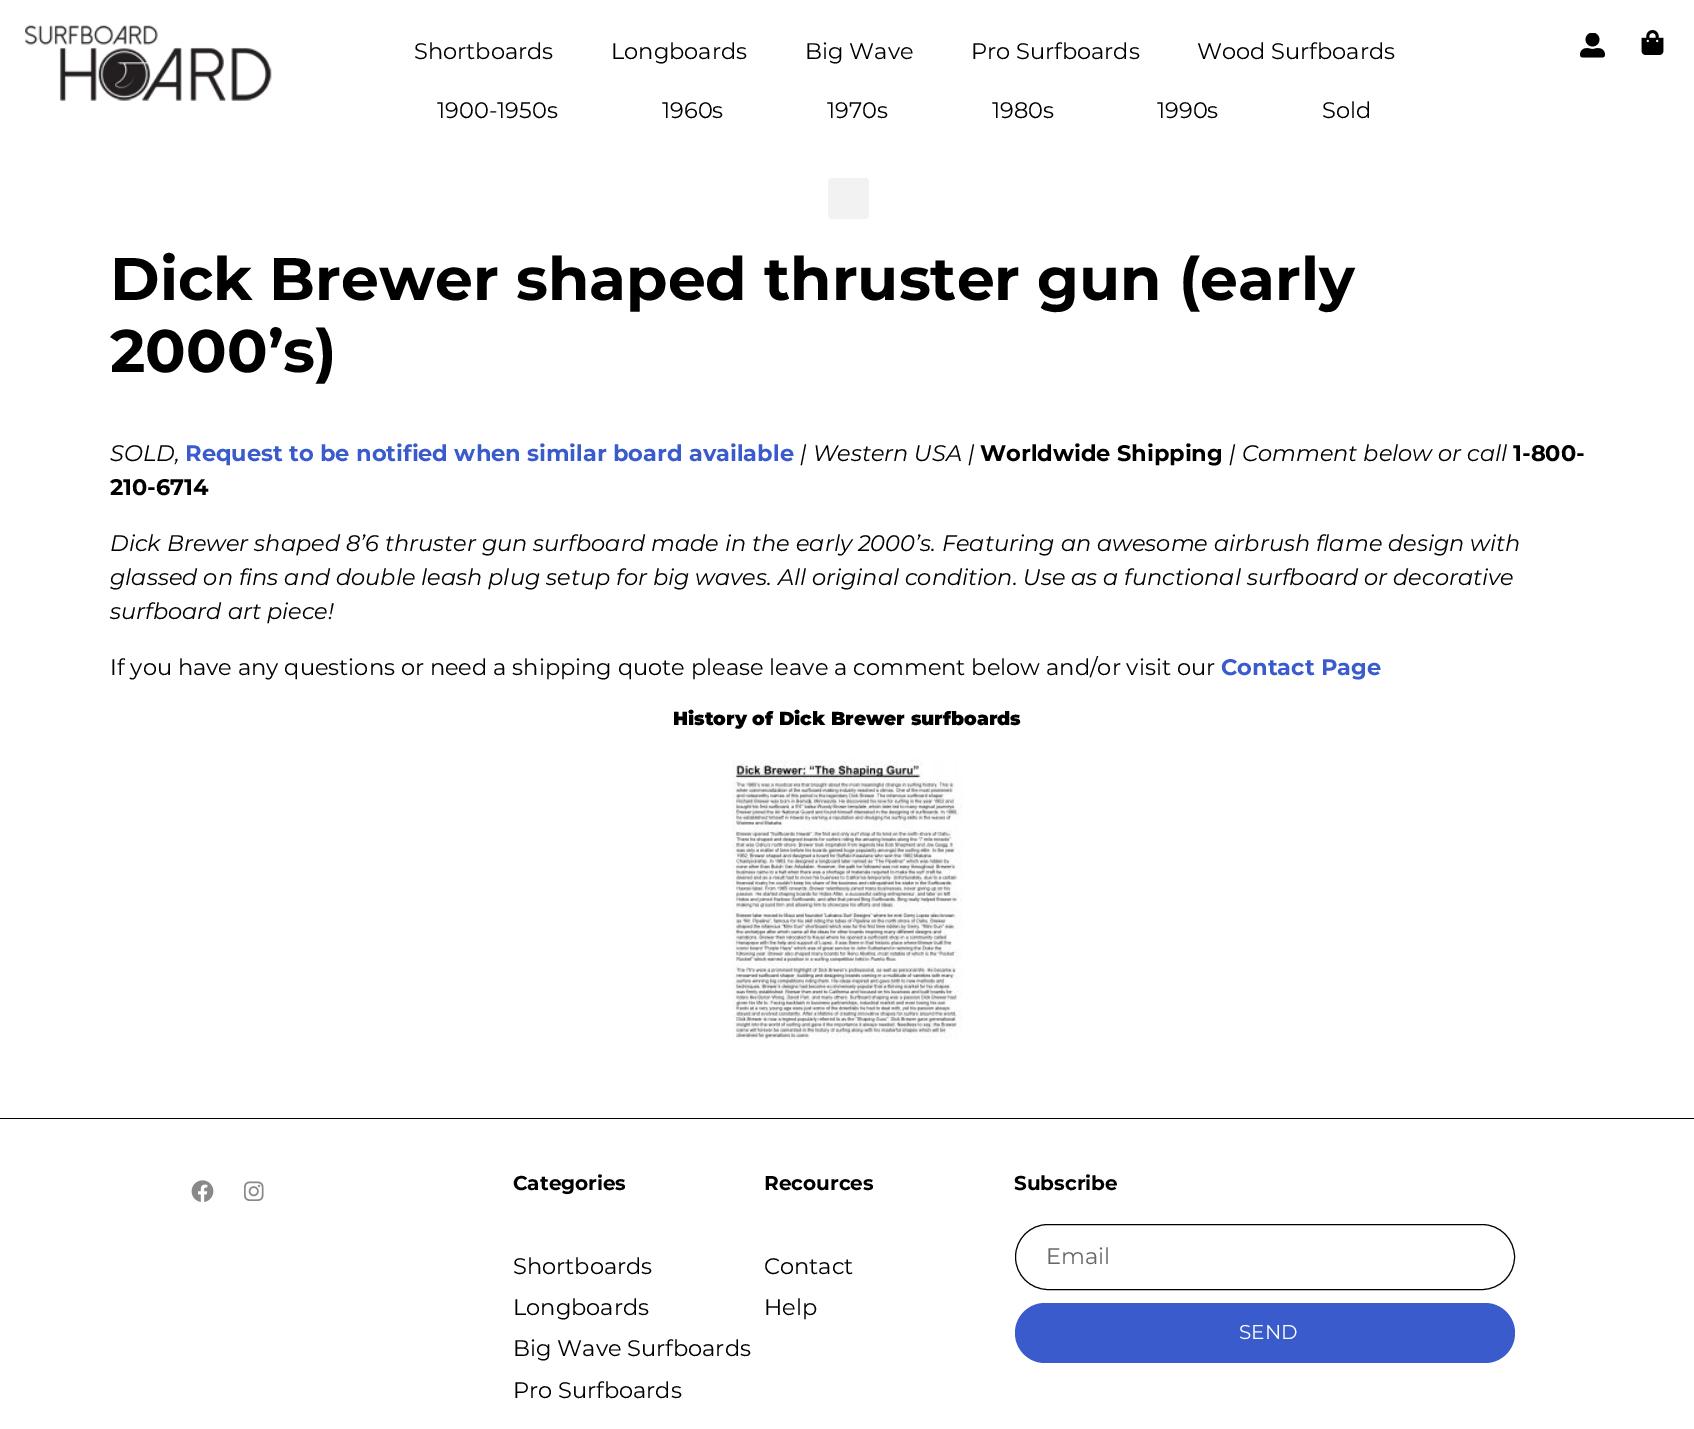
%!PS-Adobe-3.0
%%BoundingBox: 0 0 1694 1429
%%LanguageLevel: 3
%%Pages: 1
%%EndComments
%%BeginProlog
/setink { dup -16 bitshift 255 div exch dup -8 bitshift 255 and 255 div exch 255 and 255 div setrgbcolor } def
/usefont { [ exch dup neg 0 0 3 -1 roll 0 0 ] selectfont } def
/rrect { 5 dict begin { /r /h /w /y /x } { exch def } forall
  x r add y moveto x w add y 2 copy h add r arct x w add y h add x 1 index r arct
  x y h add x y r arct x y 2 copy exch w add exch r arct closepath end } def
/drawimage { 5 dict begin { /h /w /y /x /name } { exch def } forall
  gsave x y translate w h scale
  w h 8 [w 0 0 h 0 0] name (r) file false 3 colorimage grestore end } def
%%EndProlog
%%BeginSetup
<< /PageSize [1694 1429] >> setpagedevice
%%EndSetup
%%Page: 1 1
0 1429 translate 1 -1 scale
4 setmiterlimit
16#FFFFFF setink
0 0 1694 1429 rectfill
(img1.raw) 25 25 247 76 drawimage
/Montserrat-Regular 22.5 usefont
16#000000 setink
[
    [(Shortboards) 414 59]
    [(Longboards) 611 59]
    [(Big Wave) 805 59]
    [(Pro Surfboards) 971 59]
    [(Wood Surfboards) 1197 59]
    [(1900-1950s) 437 118]
    [(1960s) 662 118]
    [(1970s) 827 118]
    [(1980s) 992 118]
    [(1990s) 1157 118]
    [(Sold) 1322 118]
] { aload pop moveto show } forall
(img2.raw) 1580 33 25 25 drawimage
(img3.raw) 1641 30 23 25 drawimage
16#F2F2F2 setink
828 178 41 41 4 rrect fill
/Montserrat-Bold 60 usefont
16#000000 setink
110 300 moveto (Dick Brewer shaped thruster gun \(early) show
110 372 moveto (2000’s\)) show
/Montserrat-Italic 22.5 usefont
110 461 moveto (SOLD,) show
/Montserrat-Bold 22.5 usefont
16#3A5BCC setink
185 461 moveto (Request to be notified when similar board available) show
/Montserrat-Italic 22.5 usefont
16#000000 setink
800 461 moveto (| Western USA |) show
/Montserrat-Bold 22.5 usefont
980 461 moveto (Worldwide Shipping) show
/Montserrat-Italic 22.5 usefont
1229 461 moveto (| Comment below or call) show
/Montserrat-Bold 22.5 usefont
1513 461 moveto (1-800-) show
110 495 moveto (210-6714) show
/Montserrat-Italic 22.5 usefont
[
    [(Dick Brewer shaped 8’6 thruster gun surfboard made in the early 2000’s. Featuring an awesome airbrush flame design with) 110 551]
    [(glassed on fins and double leash plug setup for big waves. All original condition. Use as a functional surfboard or decorative) 110 585]
    [(surfboard art piece!) 110 619]
] { aload pop moveto show } forall
/Montserrat-Regular 22.5 usefont
110 675 moveto (If you have any questions or need a shipping quote please leave a comment below and/or visit our) show
/Montserrat-Bold 22.5 usefont
16#3A5BCC setink
1221 675 moveto (Contact Page) show
/Montserrat-Black 18.75 usefont
16#000000 setink
673 725 moveto (History of Dick Brewer surfboards) show
(img4.raw) 732 759 231 281 drawimage
0 1118 1694 1 rectfill
(img5.raw) 191 1180 23 22 drawimage
(img6.raw) 244 1181 20 20 drawimage
/Montserrat-Bold 20 usefont
513 1190 moveto (Categories) show
/Montserrat-Regular 22.5 usefont
[
    [(Shortboards) 513 1274]
    [(Longboards) 513 1315]
    [(Big Wave Surfboards) 513 1356]
    [(Pro Surfboards) 513 1398]
] { aload pop moveto show } forall
/Montserrat-Bold 20 usefont
764 1190 moveto (Recources) show
/Montserrat-Regular 22.5 usefont
764 1274 moveto (Contact) show
764 1315 moveto (Help) show
/Montserrat-Bold 20 usefont
1014 1190 moveto (Subscribe) show
1015.5 1224.5 499 65 32.5 rrect stroke
/Montserrat-Regular 22.5 usefont
16#666666 setink
1046 1264 moveto (Email) show
16#3A5BCC setink
1015 1303 500 60 30 rrect fill
/Montserrat-Regular 20 usefont
16#FFFFFF setink
1239 1339 moveto (SEND) show
showpage
%%EOF
